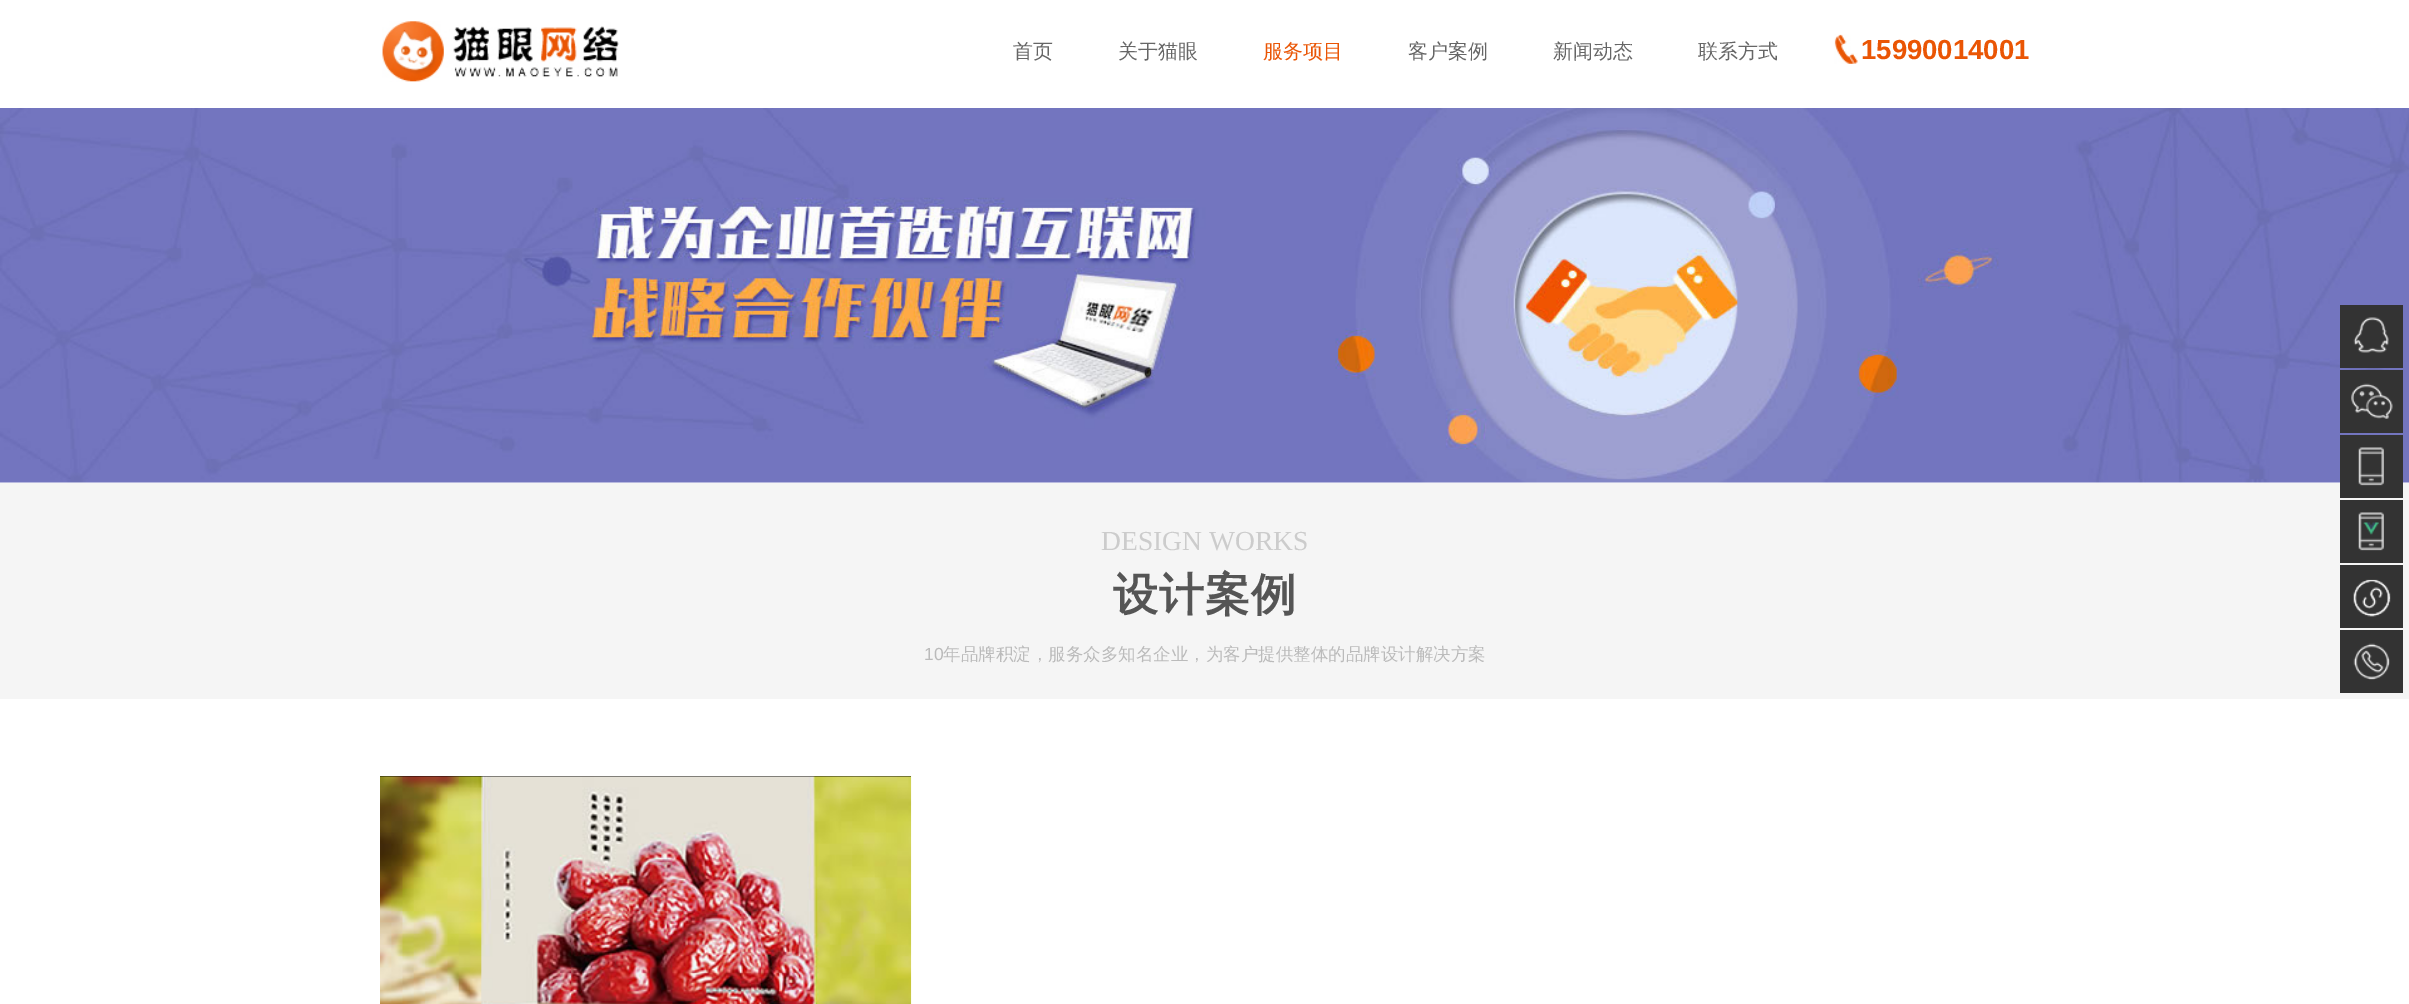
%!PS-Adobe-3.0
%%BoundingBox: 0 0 2409 1004
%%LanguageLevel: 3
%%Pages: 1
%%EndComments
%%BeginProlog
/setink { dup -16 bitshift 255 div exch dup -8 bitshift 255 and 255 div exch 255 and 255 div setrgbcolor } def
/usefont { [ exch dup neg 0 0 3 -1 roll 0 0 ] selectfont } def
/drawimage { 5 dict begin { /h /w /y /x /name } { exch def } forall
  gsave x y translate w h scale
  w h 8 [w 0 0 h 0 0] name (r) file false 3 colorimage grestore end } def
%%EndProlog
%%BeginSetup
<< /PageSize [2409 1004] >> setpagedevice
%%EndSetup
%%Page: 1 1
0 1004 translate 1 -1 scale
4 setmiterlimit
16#FFFFFF setink
0 0 2409 1004 rectfill
(img1.raw) 382 21 237 61 drawimage
/WenQuanYiZenHei-Medium 20 usefont
16#666666 setink
1013 58 moveto (首页) show
1118 58 moveto (关于猫眼) show
16#EA5504 setink
1263 58 moveto (服务项目) show
16#666666 setink
[
    [(客户案例) 1408 58]
    [(新闻动态) 1553 58]
    [(联系方式) 1698 58]
] { aload pop moveto show } forall
(img2.raw) 1834 34 24 30 drawimage
/LiberationSans-Bold 27.5 usefont
16#EA5504 setink
1861 59 moveto (15990014001) show
(img3.raw) 0 108 2409 375 drawimage
16#F5F5F5 setink
0 483 2409 216 rectfill
/LiberationSerif-Regular 27.5 usefont
16#CCCCCC setink
1101 550 moveto (DESIGN WORKS) show
/WenQuanYiZenHei-Bold 45 usefont
16#555555 setink
1113 610 moveto 1 0 (设计案例) ashow
/LiberationSans-Regular 17.5 usefont
16#BBBBBB setink
924 660 moveto (10) show
/WenQuanYiZenHei-Medium 17.5 usefont
943 660 moveto (年品牌积淀，服务众多知名企业，为客户提供整体的品牌设计解决方案) show
16#000000 setink
380 776 531 1 rectfill
(img4.raw) 380 776 532 228 drawimage
16#333333 setink
2340 305 63 63 rectfill
(img5.raw) 2353 317 36 36 drawimage
2340 370 63 63 rectfill
(img6.raw) 2351 383 42 36 drawimage
2340 435 63 63 rectfill
(img7.raw) 2358 447 26 39 drawimage
2340 500 63 63 rectfill
(img8.raw) 2358 512 26 39 drawimage
2340 565 63 63 rectfill
(img9.raw) 2353 579 38 38 drawimage
2340 630 63 63 rectfill
(img10.raw) 2353 643 37 37 drawimage
showpage
%%EOF
